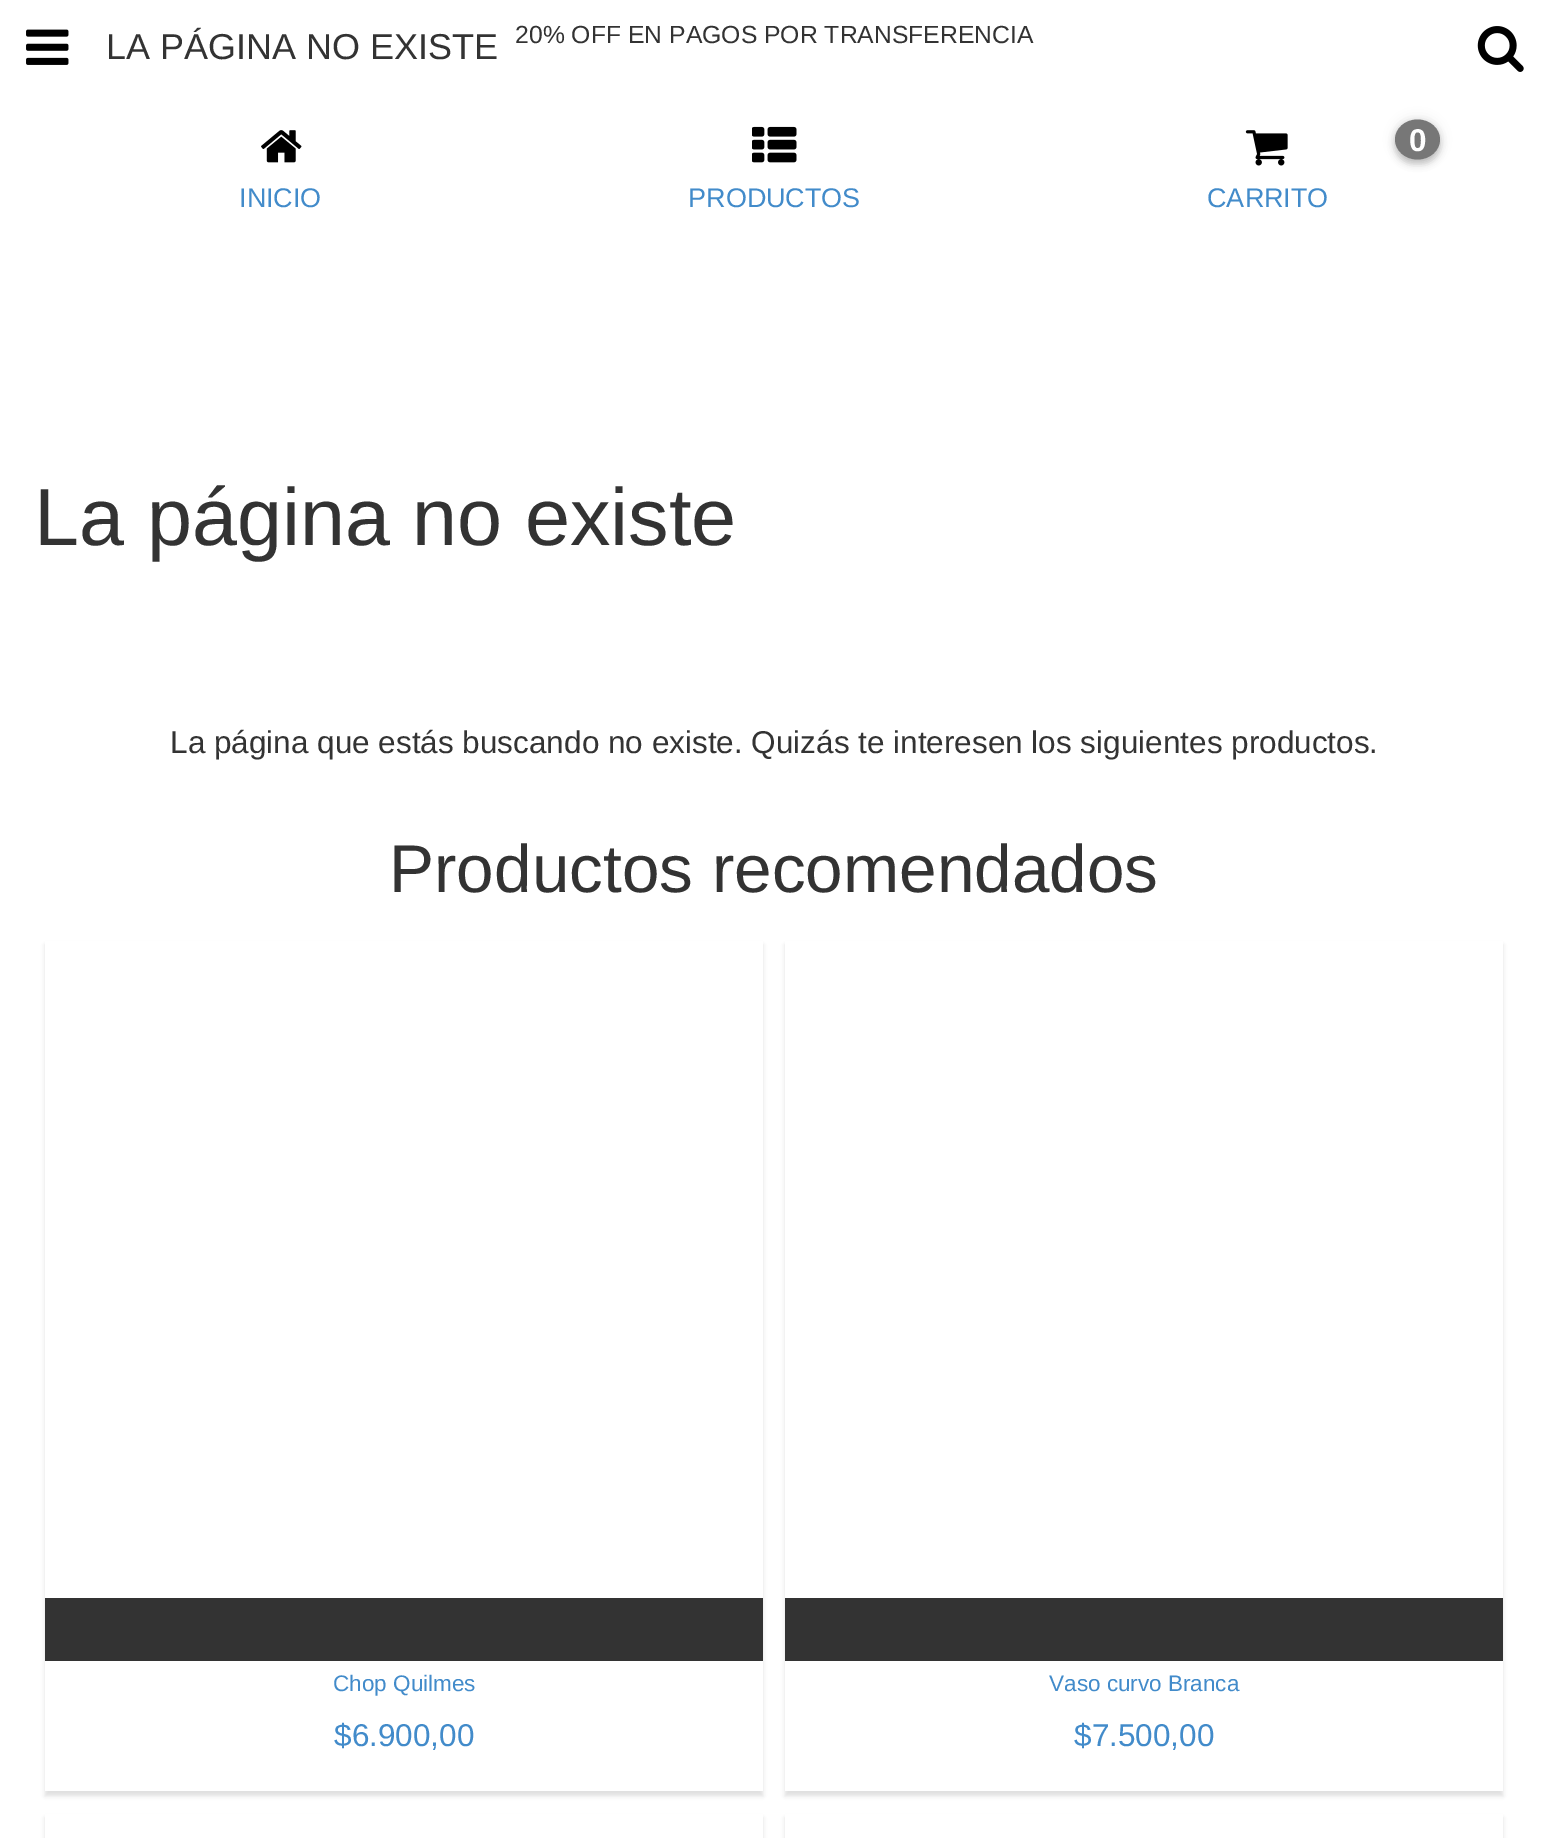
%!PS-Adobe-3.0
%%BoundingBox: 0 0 1547 1838
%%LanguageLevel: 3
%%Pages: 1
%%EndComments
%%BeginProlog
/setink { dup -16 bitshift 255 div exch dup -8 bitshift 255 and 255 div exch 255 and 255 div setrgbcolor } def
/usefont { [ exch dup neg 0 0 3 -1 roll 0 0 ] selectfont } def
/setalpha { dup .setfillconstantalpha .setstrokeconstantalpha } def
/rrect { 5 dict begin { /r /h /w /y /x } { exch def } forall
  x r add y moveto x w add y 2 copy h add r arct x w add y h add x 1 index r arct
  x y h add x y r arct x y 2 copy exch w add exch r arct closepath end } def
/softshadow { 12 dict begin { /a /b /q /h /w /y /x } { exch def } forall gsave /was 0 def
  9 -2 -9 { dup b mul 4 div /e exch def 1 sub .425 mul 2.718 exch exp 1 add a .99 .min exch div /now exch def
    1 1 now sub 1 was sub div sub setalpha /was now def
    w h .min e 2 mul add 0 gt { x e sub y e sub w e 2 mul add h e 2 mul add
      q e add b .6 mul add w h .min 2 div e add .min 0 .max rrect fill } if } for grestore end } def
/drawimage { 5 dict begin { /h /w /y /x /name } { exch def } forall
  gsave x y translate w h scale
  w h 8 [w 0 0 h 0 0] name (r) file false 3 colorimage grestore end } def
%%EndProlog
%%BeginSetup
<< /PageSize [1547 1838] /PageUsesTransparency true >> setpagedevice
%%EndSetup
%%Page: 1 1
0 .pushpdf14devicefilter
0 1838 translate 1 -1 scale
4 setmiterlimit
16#FFFFFF setink
0 0 1547 1838 rectfill
/LiberationSans-Regular 24.75 usefont
16#333333 setink
515 43 moveto (20% OFF EN PAGOS POR TRANSFERENCIA) show
(img1.raw) 26 29 43 36 drawimage
/LiberationSans-Regular 36 usefont
106 59 moveto (LA PÁGINA NO EXISTE) show
(img2.raw) 1477 26 47 46 drawimage
(img3.raw) 261 130 41 33 drawimage
/LiberationSans-Regular 27 usefont
16#428BCA setink
239 207 moveto (INICIO) show
(img4.raw) 752 126 45 37 drawimage
688 207 moveto (PRODUCTOS) show
(img5.raw) 1245 130 43 36 drawimage
16#000000 setink
1395 124 45 40 20 3.5 0.2 softshadow
1395 119 45 41 20.5 5.5 0.1 softshadow
16#777777 setink
1417.5 119.5 moveto 1430 119.5 1440 128.5 1440 139.5 curveto 1440 150.5 1430 159.5 1417.5 159.5 curveto 1405 159.5 1395 150.5 1395 139.5 curveto 1395 128.5 1405 119.5 1417.5 119.5 curveto closepath fill
/LiberationSans-Bold 31.5 usefont
16#FFFFFF setink
1409 151 moveto (0) show
/LiberationSans-Regular 27 usefont
16#428BCA setink
1207 207 moveto (CARRITO) show
/LiberationSans-Regular 81 usefont
16#333333 setink
34 545 moveto (La página no existe) show
/LiberationSans-Regular 31.5 usefont
170 753 moveto (La página que estás buscando no existe. Quizás te interesen los siguientes productos.) show
/LiberationSans-Regular 67.5 usefont
389 892 moveto (Productos recomendados) show
gsave
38 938 moveto 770 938 lineto 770 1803 lineto 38 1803 lineto closepath 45 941 moveto 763 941 lineto 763 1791 lineto 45 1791 lineto closepath eoclip newpath
16#323232 setink
45 945 718 851 0 2 0.15 softshadow
grestore
16#FFFFFF setink
762 1661 1 130 rectfill
16#333333 setink
45 1598 718 63 rectfill
/LiberationSans-Regular 22.5 usefont
16#428BCA setink
333 1691 moveto (Chop Quilmes) show
/LiberationSans-Regular 31.5 usefont
334 1746 moveto ($6.900,00) show
gsave
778 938 moveto 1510 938 lineto 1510 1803 lineto 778 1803 lineto closepath 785 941 moveto 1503 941 lineto 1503 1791 lineto 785 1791 lineto closepath eoclip newpath
16#323232 setink
785 945 718 851 0 2 0.15 softshadow
grestore
16#FFFFFF setink
785 1661 1 130 rectfill
16#333333 setink
785 1598 718 63 rectfill
/LiberationSans-Regular 22.5 usefont
16#428BCA setink
1049 1691 moveto (Vaso curvo Branca) show
/LiberationSans-Regular 31.5 usefont
1074 1746 moveto ($7.500,00) show
gsave
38 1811 moveto 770 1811 lineto 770 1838 lineto 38 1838 lineto closepath 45 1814 moveto 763 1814 lineto 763 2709 lineto 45 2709 lineto closepath eoclip newpath
16#323232 setink
45 1818 718 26 0 2 0.15 softshadow
grestore
gsave
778 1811 moveto 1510 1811 lineto 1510 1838 lineto 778 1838 lineto closepath 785 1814 moveto 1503 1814 lineto 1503 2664 lineto 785 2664 lineto closepath eoclip newpath
16#323232 setink
785 1818 718 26 0 2 0.15 softshadow
grestore
.poppdf14devicefilter showpage
%%EOF
